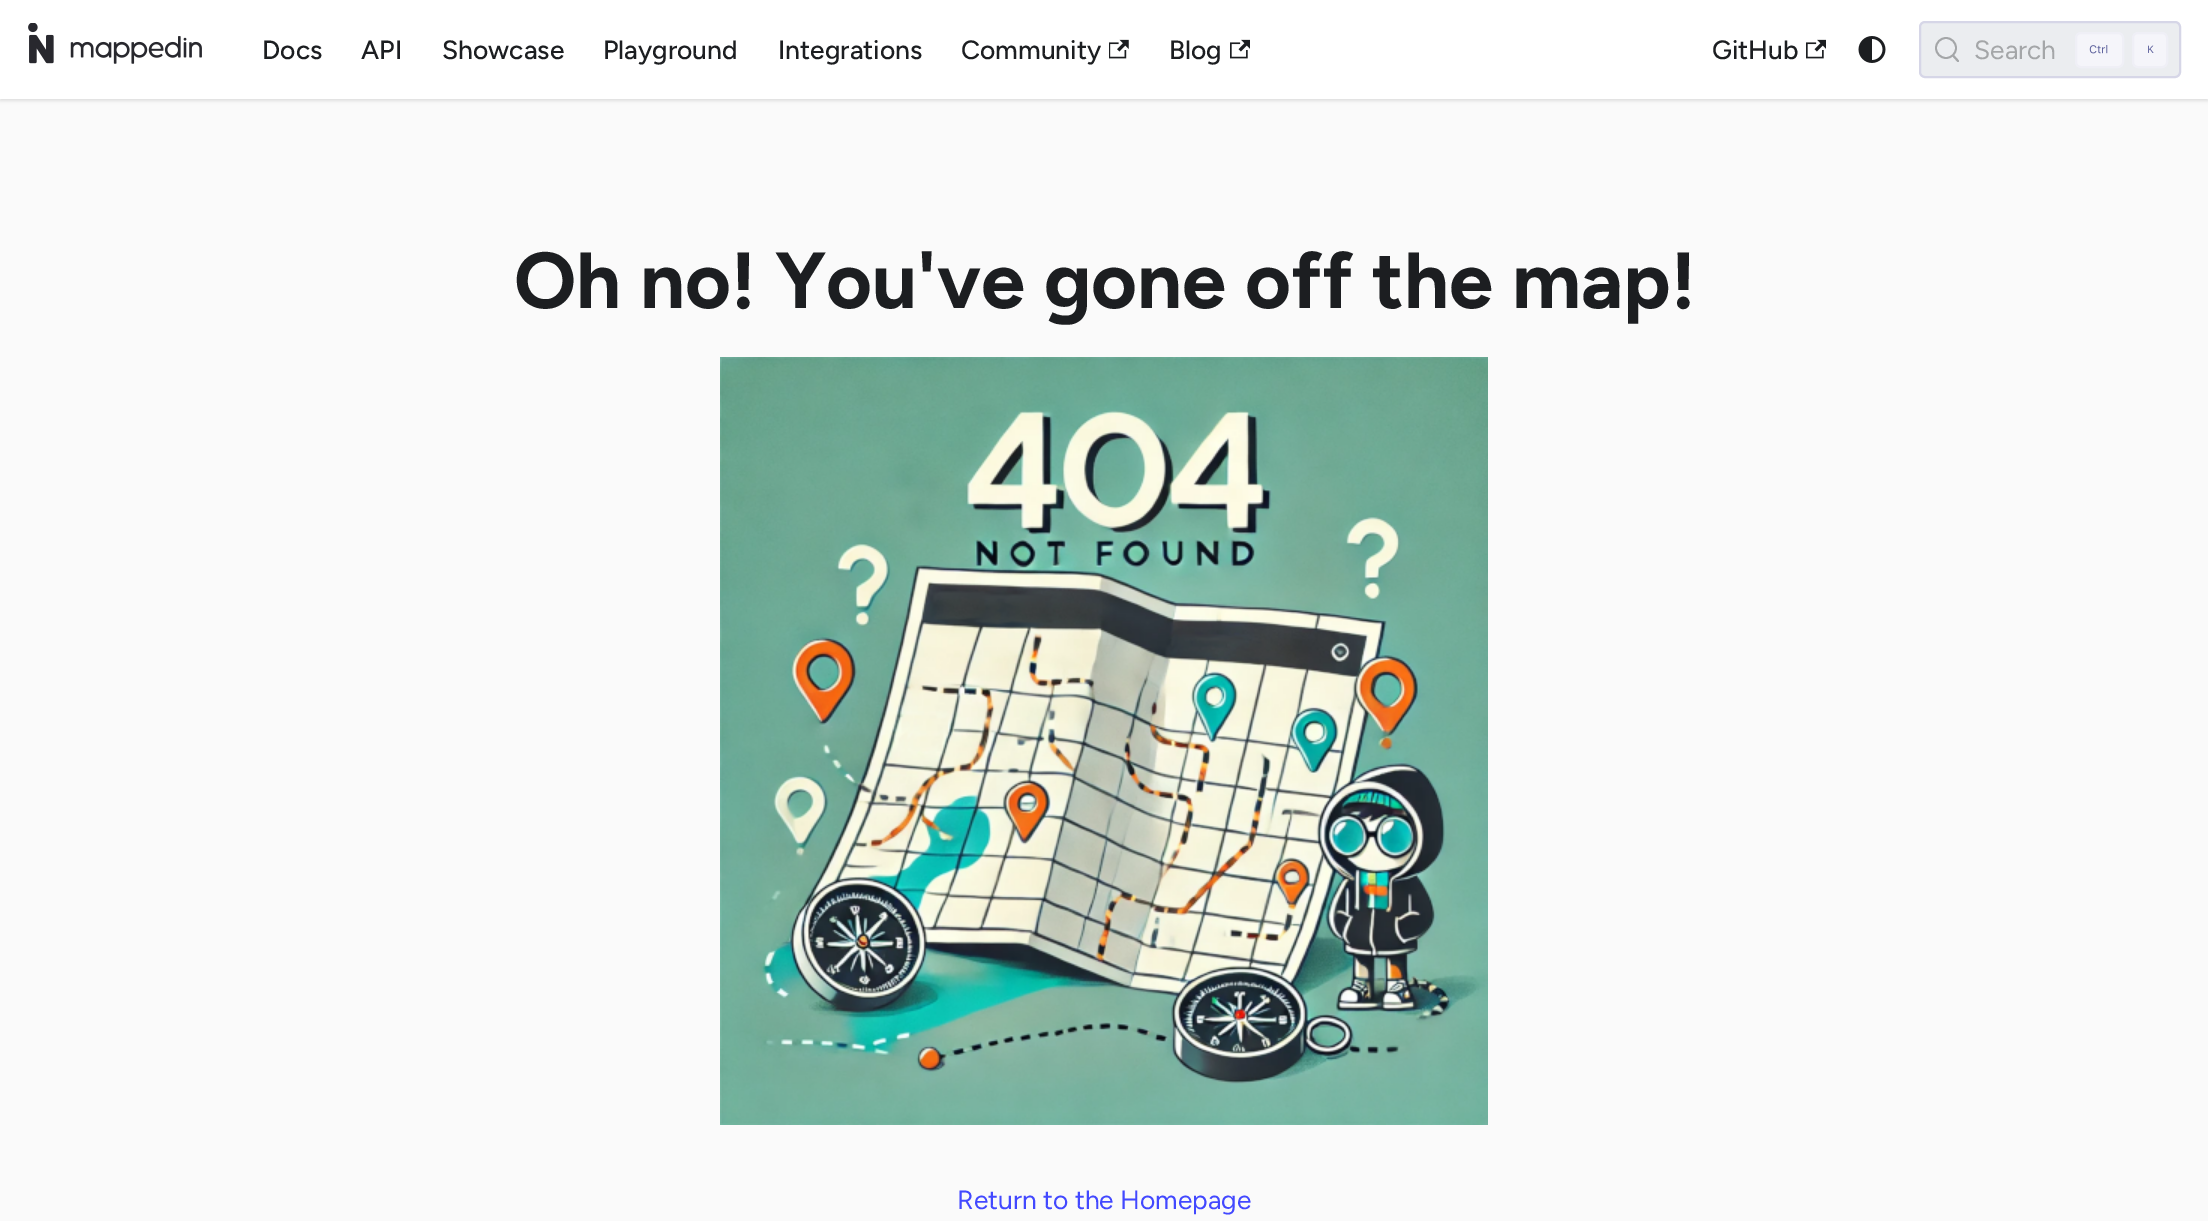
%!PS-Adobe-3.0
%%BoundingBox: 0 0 2208 1221
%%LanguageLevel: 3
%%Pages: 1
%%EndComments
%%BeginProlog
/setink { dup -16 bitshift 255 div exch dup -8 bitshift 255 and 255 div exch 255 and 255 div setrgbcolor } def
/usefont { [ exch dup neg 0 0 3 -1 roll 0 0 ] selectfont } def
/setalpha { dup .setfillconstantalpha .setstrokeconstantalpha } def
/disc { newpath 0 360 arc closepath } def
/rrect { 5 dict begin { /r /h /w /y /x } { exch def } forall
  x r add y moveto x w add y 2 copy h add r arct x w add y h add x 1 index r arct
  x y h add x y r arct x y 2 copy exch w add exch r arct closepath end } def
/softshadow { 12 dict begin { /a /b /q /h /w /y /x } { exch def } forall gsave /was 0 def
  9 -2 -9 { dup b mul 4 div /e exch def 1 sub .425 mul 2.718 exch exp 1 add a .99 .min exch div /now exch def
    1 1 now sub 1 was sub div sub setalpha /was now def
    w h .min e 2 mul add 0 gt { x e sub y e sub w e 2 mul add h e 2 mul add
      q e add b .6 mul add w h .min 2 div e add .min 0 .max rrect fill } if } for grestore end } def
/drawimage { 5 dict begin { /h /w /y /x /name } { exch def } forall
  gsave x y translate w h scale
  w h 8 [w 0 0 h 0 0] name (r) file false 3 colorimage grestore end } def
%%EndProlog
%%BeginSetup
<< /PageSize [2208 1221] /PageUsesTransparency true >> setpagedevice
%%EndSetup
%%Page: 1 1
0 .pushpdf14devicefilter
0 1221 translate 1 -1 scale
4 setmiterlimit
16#FAFAFA setink
0 0 2208 1221 rectfill
16#000000 setink
0 2 2208 99 0 1.5 0.1 softshadow
16#FFFFFF setink
0 0 2208 99 rectfill
(img1.raw) 28 23 174 41 drawimage
/Figtree-Medium 26.4 usefont
16#1C1E21 setink
[
    [(Docs) 262 59]
    [(API) 361 59]
    [(Showcase) 442 59]
    [(Playground) 603 59]
    [(Integrations) 778 59]
    [(Community) 961 59]
] { aload pop moveto show } forall
(img2.raw) 1109 39 20 20 drawimage
1169 59 moveto (Blog) show
(img3.raw) 1230 39 20 20 drawimage
1712 59 moveto (GitHub) show
(img3.raw) 1806 39 20 20 drawimage
(img4.raw) 1858 36 28 27 drawimage
16#EBEDF0 setink
1920 22 260 55 5 rrect gsave fill grestore
16#D6D6E7 setink
2 setlinewidth
stroke
16#A4A6A8 setink
1.8 setlinewidth
1946 48 10 disc stroke
2 setlinewidth
1 setlinecap
1 setlinejoin
1958 61 moveto 1953 55.5 lineto stroke
/Figtree-Regular 26.4 usefont
1974 59 moveto (Search) show
16#F5F5FA setink
2076 33 47 34 5 rrect gsave fill grestore
16#EFEFF6 setink
0 setlinecap
0 setlinejoin
stroke
(img5.raw) 2089 45 19 9 drawimage
16#F5F5FA setink
2133 33 34 34 5 rrect gsave fill grestore
16#EFEFF6 setink
stroke
(img6.raw) 2148 45 6 8 drawimage
/Figtree-Bold 79.25 usefont
16#1C1E21 setink
514 308 moveto (Oh no! You've gone off the map!) show
(img7.raw) 720 357 768 768 drawimage
/Figtree-Regular 26.4 usefont
16#4248FF setink
957 1209 moveto (Return to the Homepage) show
.poppdf14devicefilter showpage
%%EOF
